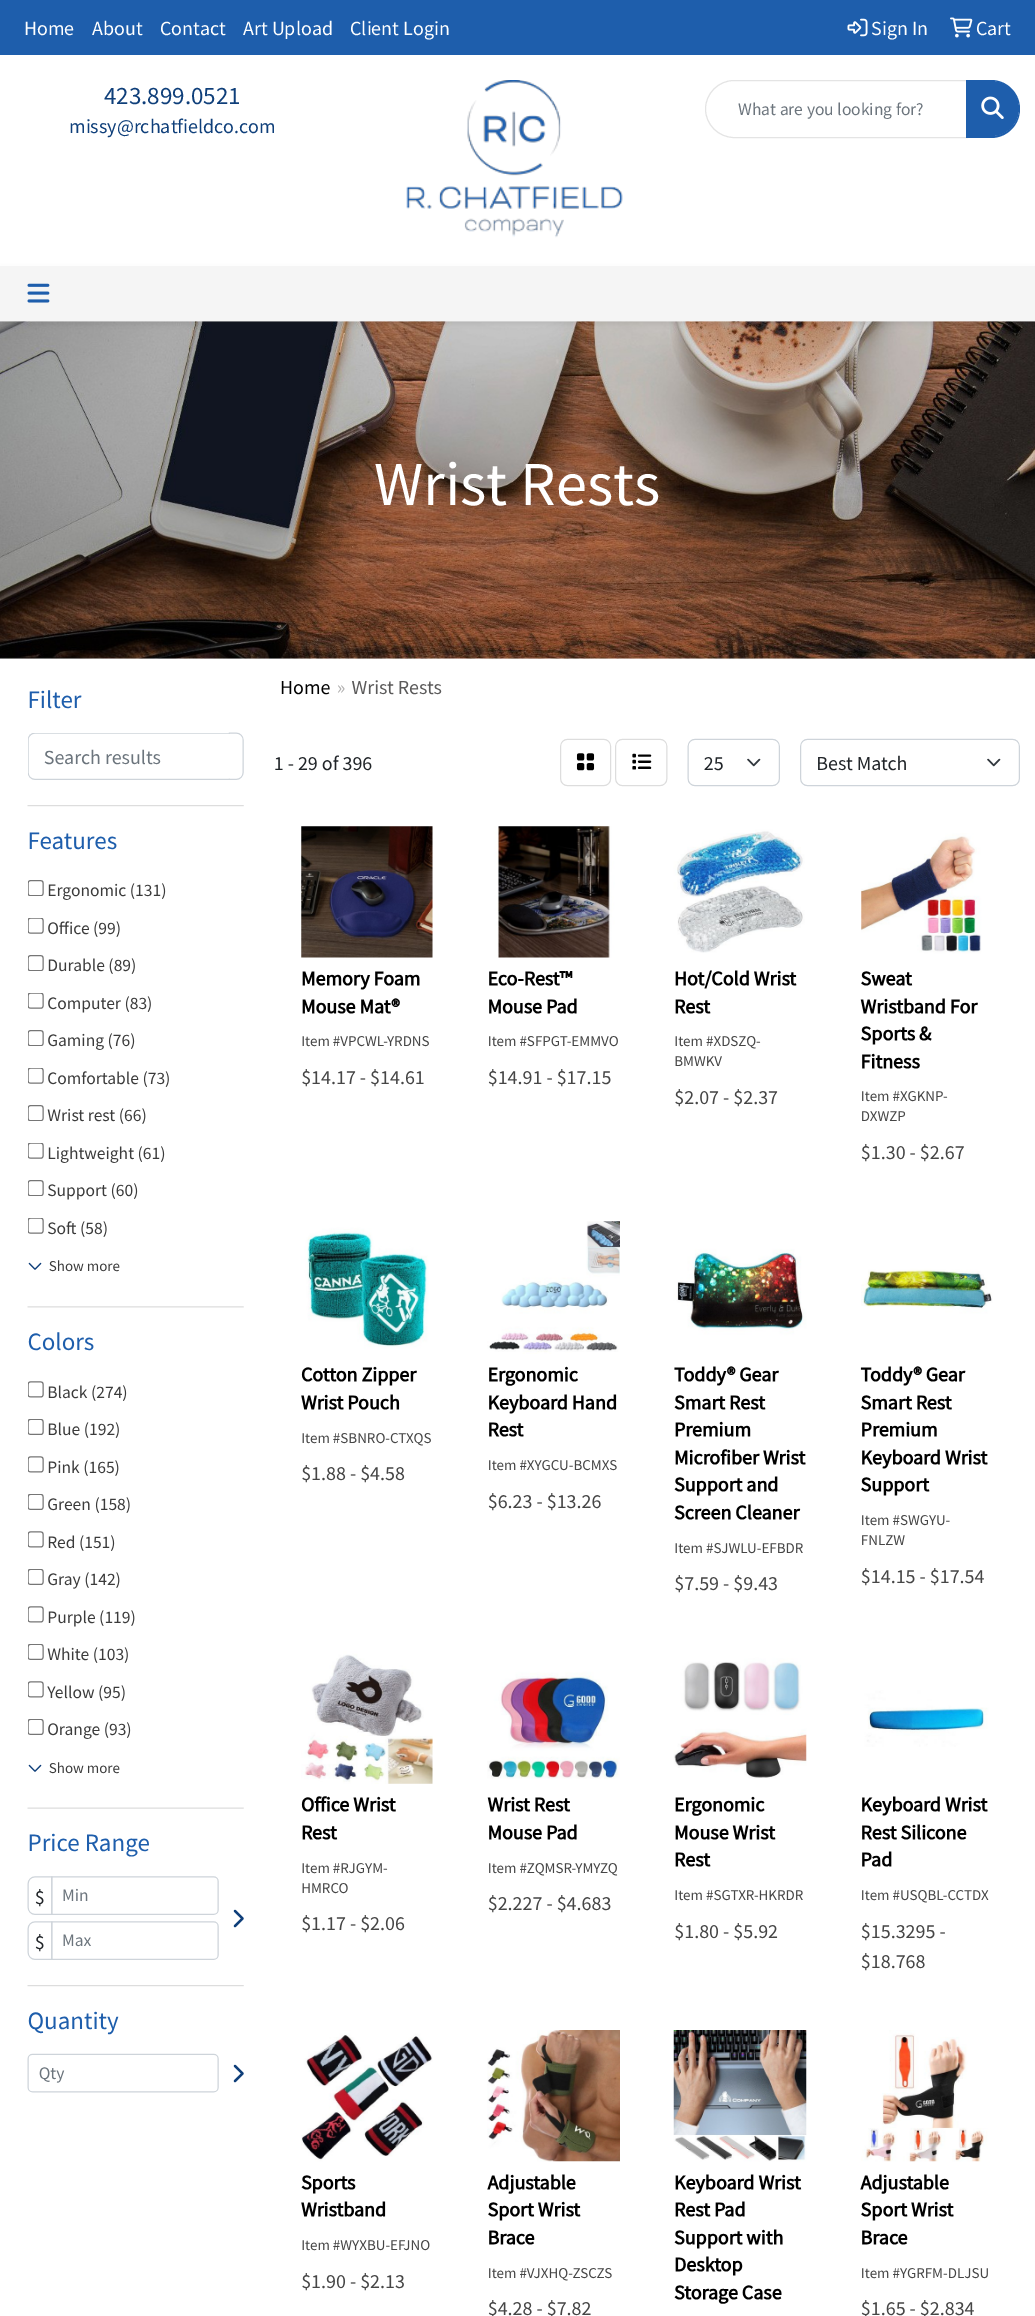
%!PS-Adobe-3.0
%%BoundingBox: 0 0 1035 2316
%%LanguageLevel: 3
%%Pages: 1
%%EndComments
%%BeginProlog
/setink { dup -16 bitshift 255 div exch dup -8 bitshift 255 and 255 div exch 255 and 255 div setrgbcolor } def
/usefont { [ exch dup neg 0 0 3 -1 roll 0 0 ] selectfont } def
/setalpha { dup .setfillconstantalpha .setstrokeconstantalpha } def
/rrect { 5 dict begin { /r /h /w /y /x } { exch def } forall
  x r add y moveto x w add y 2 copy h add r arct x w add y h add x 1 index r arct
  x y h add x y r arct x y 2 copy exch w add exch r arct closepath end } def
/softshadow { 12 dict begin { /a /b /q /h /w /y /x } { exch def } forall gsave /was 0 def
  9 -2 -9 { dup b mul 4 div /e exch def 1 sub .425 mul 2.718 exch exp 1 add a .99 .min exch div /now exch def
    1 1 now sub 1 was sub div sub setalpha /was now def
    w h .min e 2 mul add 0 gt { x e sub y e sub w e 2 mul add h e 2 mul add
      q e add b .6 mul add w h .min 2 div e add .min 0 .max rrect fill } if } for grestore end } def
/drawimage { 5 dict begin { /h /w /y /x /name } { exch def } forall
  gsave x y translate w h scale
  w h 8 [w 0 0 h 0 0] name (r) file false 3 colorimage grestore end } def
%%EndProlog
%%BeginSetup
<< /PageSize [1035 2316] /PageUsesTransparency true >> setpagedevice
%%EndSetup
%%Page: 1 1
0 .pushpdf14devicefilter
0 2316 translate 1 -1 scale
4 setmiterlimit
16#FFFFFF setink
0 0 1035 2316 rectfill
16#1E5EAC setink
0 0 1035 55 rectfill
/SourceSansPro-Regular 20 usefont
16#FFFFFF setink
[
    [(Home) 24 35]
    [(About) 92 35]
    [(Contact) 160 35]
    [(Art Upload) 243 35]
    [(Client Login) 350 35]
] { aload pop moveto show } forall
(img1.raw) 847 18 21 19 drawimage
871 35 moveto (Sign In) show
(img2.raw) 950 17 23 21 drawimage
976 35 moveto (Cart) show
/SourceSansPro-Regular 25 usefont
16#0F3F7A setink
104 104 moveto (423.899.0521) show
/SourceSansPro-Regular 20 usefont
69 133 moveto (missy@rchatfieldco.com) show
(img3.raw) 406 80 217 158 drawimage
16#E4E4E4 setink
734 80.5 moveto 967.5 80.5 lineto 967.5 137.5 lineto 734 137.5 lineto 718.5 137.5 705.5 124.5 705.5 109 curveto 705.5 93.5 718.5 80.5 734 80.5 curveto closepath stroke
/SourceSansPro-Regular 17.5 usefont
16#6C757D setink
738 115 moveto (What are you looking for?) show
16#1E5EAC setink
966 81 moveto 991.5 81 lineto 1006.5 81 1019 93.5 1019 108.5 curveto 1019 123.5 1006.5 136 991.5 136 curveto 966 136 lineto closepath fill
966 80 moveto 991 80 lineto 1007 80 1020 93 1020 109 curveto 1020 125 1007 138 991 138 curveto 966 138 lineto closepath 966 81 moveto 991 81 lineto 1006 81 1019 94 1019 109 curveto 1019 124 1006 136 991 136 curveto 966 136 lineto closepath eofill
(img4.raw) 981 96 23 23 drawimage
(img6.raw) 0 321 1035 338 drawimage
16#000000 setink
0 269 1035 55 0 2.5 0.07 softshadow
16#F5F5F5 setink
0 266 1035 55 rectfill
(img5.raw) 27 283 23 20 drawimage
/SourceSansPro-Regular 62.5 usefont
16#FFFFFF setink
374 505 moveto (Wrist Rests) show
(img7.raw) 27 680 993 1636 drawimage
.poppdf14devicefilter showpage
%%EOF
